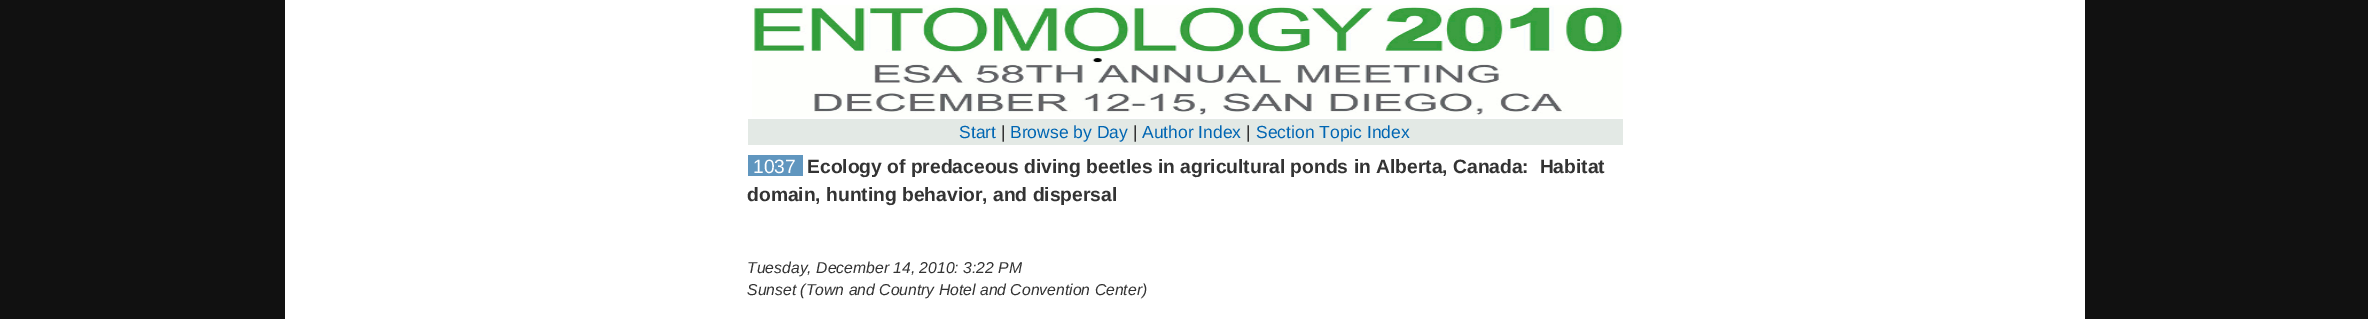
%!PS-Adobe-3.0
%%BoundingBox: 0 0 2368 319
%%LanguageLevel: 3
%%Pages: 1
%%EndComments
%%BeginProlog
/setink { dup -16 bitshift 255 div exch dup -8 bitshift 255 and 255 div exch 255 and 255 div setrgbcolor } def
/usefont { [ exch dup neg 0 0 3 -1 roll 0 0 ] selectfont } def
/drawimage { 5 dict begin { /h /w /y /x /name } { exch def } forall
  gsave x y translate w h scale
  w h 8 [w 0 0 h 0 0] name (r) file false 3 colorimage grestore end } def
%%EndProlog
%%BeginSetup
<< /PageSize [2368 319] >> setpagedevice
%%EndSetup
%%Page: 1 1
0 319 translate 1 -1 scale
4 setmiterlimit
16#111111 setink
0 0 2368 319 rectfill
16#FFFFFF setink
285 0 1800 319 rectfill
(img1.raw) 752 5 871 112 drawimage
16#E3E9E5 setink
748 119 875 26 rectfill
/LiberationSans-Regular 17.5 usefont
16#0066B3 setink
959 138 moveto (Start) show
16#333333 setink
1001 138 moveto (|) show
16#0066B3 setink
1010 138 moveto (Browse by Day) show
16#333333 setink
1133 138 moveto (|) show
16#0066B3 setink
1142 138 moveto (Author Index) show
16#333333 setink
1246 138 moveto (|) show
16#0066B3 setink
1256 138 moveto (Section Topic Index) show
16#6096BF setink
748 155 55 21 rectfill
/LiberationSans-Regular 19.25 usefont
16#FFFFFF setink
753 173 moveto (1037) show
/LiberationSans-Bold 19.25 usefont
16#333333 setink
807 173 moveto (Ecology of predaceous diving beetles in agricultural ponds in Alberta, Canada:  Habitat) show
747 201 moveto (domain, hunting behavior, and dispersal) show
/LiberationSans-Italic 15.75 usefont
747 273 moveto (Tuesday, December 14, 2010: 3:22 PM) show
747 295 moveto (Sunset \(Town and Country Hotel and Convention Center\)) show
showpage
%%EOF
